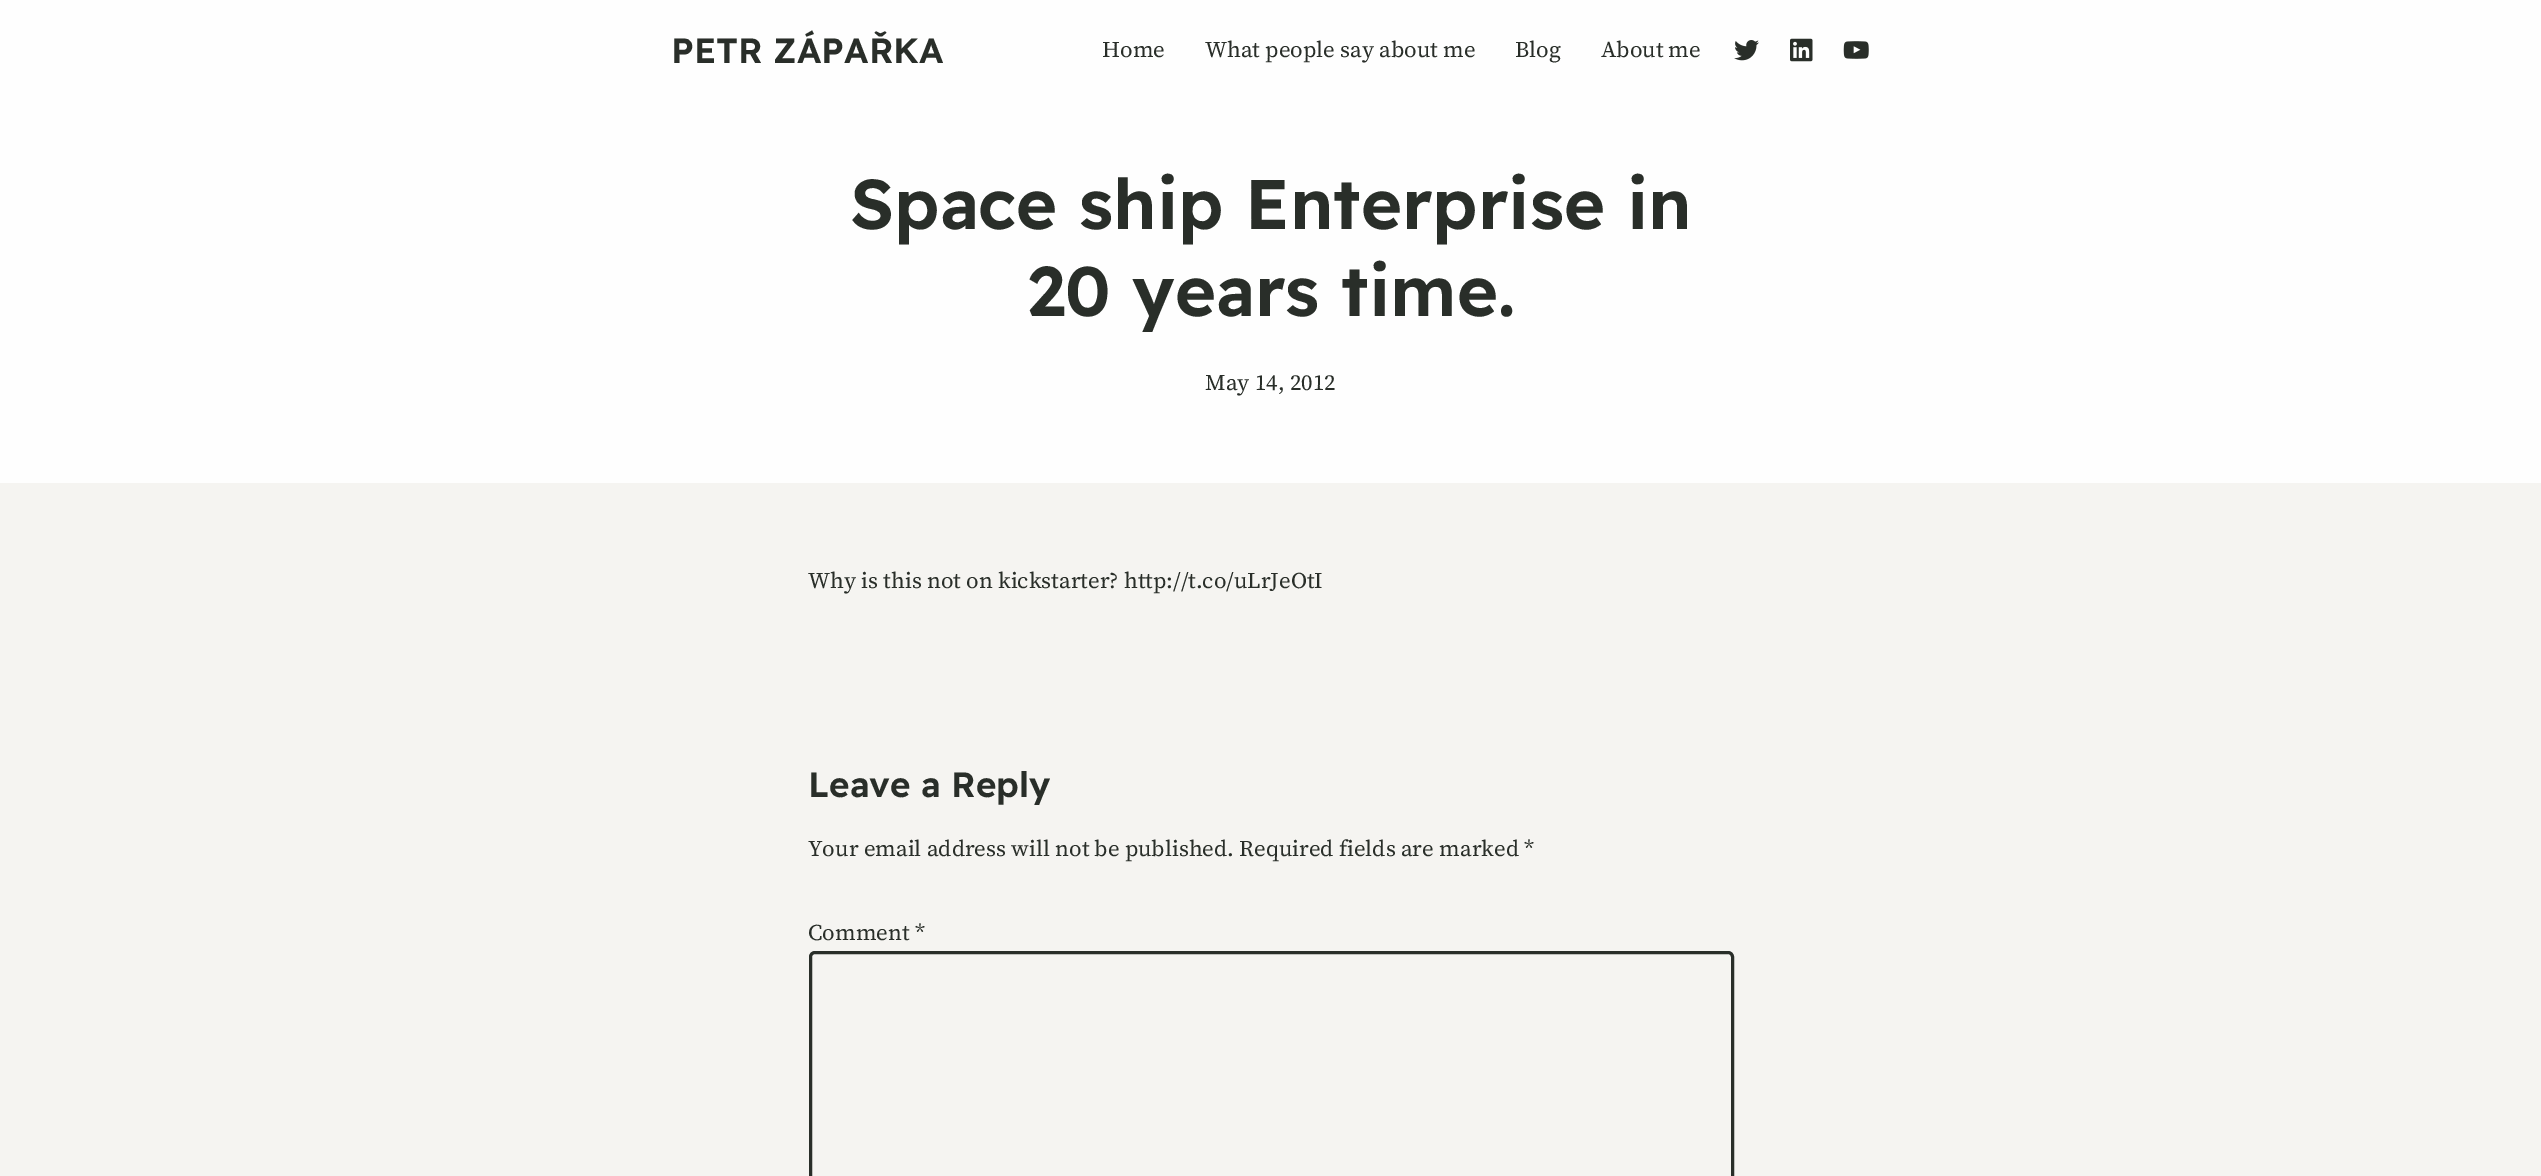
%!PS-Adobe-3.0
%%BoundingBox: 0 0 2541 1176
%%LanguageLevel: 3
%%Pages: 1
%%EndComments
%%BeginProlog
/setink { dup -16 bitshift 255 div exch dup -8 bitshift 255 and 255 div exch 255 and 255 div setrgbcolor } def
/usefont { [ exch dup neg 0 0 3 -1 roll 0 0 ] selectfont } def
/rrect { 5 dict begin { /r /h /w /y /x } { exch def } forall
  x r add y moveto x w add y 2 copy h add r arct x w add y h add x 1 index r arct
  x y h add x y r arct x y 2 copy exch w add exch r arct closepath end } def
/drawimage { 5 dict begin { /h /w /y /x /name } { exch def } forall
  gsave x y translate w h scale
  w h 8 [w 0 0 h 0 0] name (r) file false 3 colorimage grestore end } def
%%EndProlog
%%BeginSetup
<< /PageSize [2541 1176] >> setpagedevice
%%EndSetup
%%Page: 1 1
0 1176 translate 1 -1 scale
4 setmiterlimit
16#F5F4F1 setink
0 0 2541 1176 rectfill
16#FEFEFE setink
0 0 2541 483 rectfill
/ReadexPro-SemiBold 35 usefont
16#292E29 setink
671 63 moveto (PETR ZÁPAŘKA) show
/SourceSerif4-Regular 22.5 usefont
[
    [(Home) 1102 57]
    [(What people say about me) 1205 57]
    [(Blog) 1515 57]
    [(About me) 1601 57]
] { aload pop moveto show } forall
(img1.raw) 1734 40 25 21 drawimage
(img2.raw) 1790 38 23 24 drawimage
(img3.raw) 1843 41 26 18 drawimage
/ReadexPro-SemiBold 70 usefont
850 229 moveto (Space ship Enterprise in) show
1027 316 moveto (20 years time.) show
/SourceSerif4-Regular 22.5 usefont
1205 390 moveto (May 14, 2012) show
808 588 moveto (Why is this not on kickstarter? http://t.co/uLrJeOtI) show
/ReadexPro-SemiBold 35 usefont
808 797 moveto (Leave a Reply) show
/SourceSerif4-Regular 22.5 usefont
808 856 moveto (Your email address will not be published. Required fields are marked *) show
808 940 moveto (Comment *) show
3 setlinewidth
810.5 952.5 922 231 4.5 rrect stroke
showpage
%%EOF
